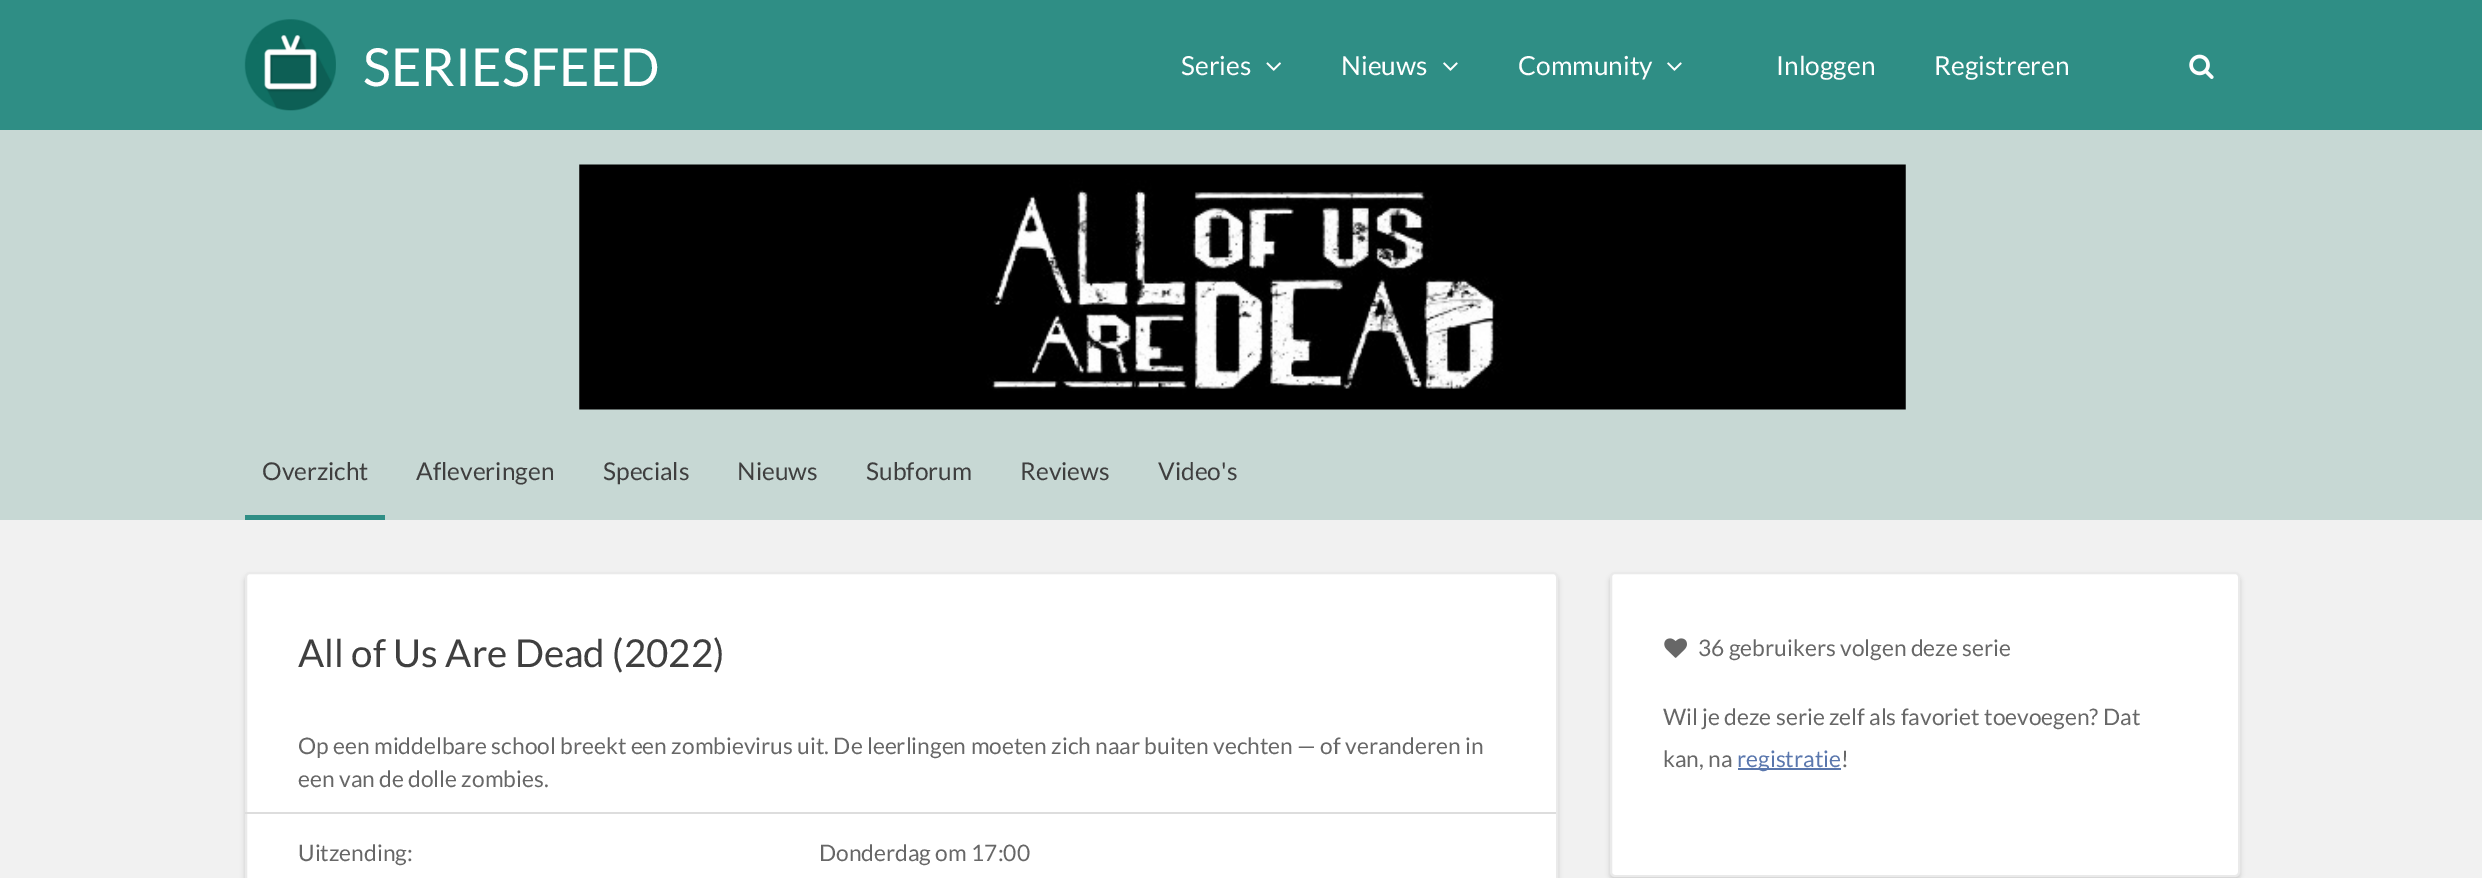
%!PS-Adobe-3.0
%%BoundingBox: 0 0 2482 878
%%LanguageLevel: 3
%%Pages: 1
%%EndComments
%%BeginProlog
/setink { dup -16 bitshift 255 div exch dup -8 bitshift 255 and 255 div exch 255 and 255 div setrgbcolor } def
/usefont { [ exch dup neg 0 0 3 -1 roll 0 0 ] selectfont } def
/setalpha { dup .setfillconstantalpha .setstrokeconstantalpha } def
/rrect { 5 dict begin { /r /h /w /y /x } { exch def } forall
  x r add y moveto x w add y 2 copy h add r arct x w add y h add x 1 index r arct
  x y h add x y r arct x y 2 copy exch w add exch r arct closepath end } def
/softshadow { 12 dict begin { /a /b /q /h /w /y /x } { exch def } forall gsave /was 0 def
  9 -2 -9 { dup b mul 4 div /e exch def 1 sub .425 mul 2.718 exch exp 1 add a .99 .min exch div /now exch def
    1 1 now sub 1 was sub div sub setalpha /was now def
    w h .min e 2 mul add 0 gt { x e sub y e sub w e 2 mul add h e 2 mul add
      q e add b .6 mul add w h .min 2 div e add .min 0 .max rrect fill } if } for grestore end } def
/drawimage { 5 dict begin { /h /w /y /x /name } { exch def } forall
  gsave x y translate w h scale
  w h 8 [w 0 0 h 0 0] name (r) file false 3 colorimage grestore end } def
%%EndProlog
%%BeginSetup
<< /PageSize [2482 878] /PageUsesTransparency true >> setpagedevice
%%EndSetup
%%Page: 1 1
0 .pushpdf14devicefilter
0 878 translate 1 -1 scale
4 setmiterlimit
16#F1F1F1 setink
0 0 2482 878 rectfill
16#2F8E85 setink
0 0 2482 130 rectfill
(img1.raw) 244 19 92 92 drawimage
/Lato-Regular 52.5 usefont
16#FFFFFF setink
363 86 moveto (SERIESFEED) show
/Lato-Regular 26.25 usefont
1181 75 moveto (Series) show
(img2.raw) 1266 62 15 9 drawimage
1341 75 moveto (Nieuws) show
(img3.raw) 1443 62 15 9 drawimage
1518 75 moveto (Community) show
(img3.raw) 1667 62 15 9 drawimage
1776 75 moveto (Inloggen) show
1934 75 moveto (Registreren) show
(img4.raw) 2189 54 25 25 drawimage
16#C7D8D4 setink
0 130 2482 390 rectfill
(img5.raw) 579 164 1327 246 drawimage
16#2F8E85 setink
245 515 140 5 rectfill
/Lato-Regular 24.5 usefont
16#3F3F3F setink
[
    [(Overzicht) 262 480]
    [(Afleveringen) 416 480]
    [(Specials) 603 480]
    [(Nieuws) 737 480]
    [(Subforum) 866 480]
    [(Reviews) 1020 480]
    [(Video's) 1158 480]
] { aload pop moveto show } forall
16#000000 setink
245 576 1313 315 5 2.5 0.15 softshadow
16#FFFFFF setink
246 573 1311 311 4 rrect gsave fill grestore
16#EAEAEA setink
2 setlinewidth
stroke
/Lato-Regular 38.5 usefont
16#3F3F3F setink
298 667 moveto (All of Us Are Dead \(2022\)) show
/Lato-Regular 22.75 usefont
16#676767 setink
[
    [(Op een middelbare school breekt een zombievirus uit. De leerlingen moeten zich naar buiten vechten — of veranderen in) 298 754]
    [(een van de dolle zombies.) 298 787]
    [(Uitzending:) 298 861]
] { aload pop moveto show } forall
16#DDDDDD setink
245 812 1311 2 rectfill
16#676767 setink
819 861 moveto (Donderdag om 17:00) show
16#000000 setink
1610 576 630 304 5 2.5 0.15 softshadow
16#FFFFFF setink
1611 573 628 303 4 rrect gsave fill grestore
16#EAEAEA setink
stroke
(img6.raw) 1664 638 23 20 drawimage
16#676767 setink
[
    [(36 gebruikers volgen deze serie) 1698 656]
    [(Wil je deze serie zelf als favoriet toevoegen? Dat) 1663 725]
    [(kan, na) 1663 767]
] { aload pop moveto show } forall
16#5A77AD setink
1738 768 103 2 rectfill
1737 767 moveto (registratie) show
16#676767 setink
1841 767 moveto (!) show
.poppdf14devicefilter showpage
%%EOF
